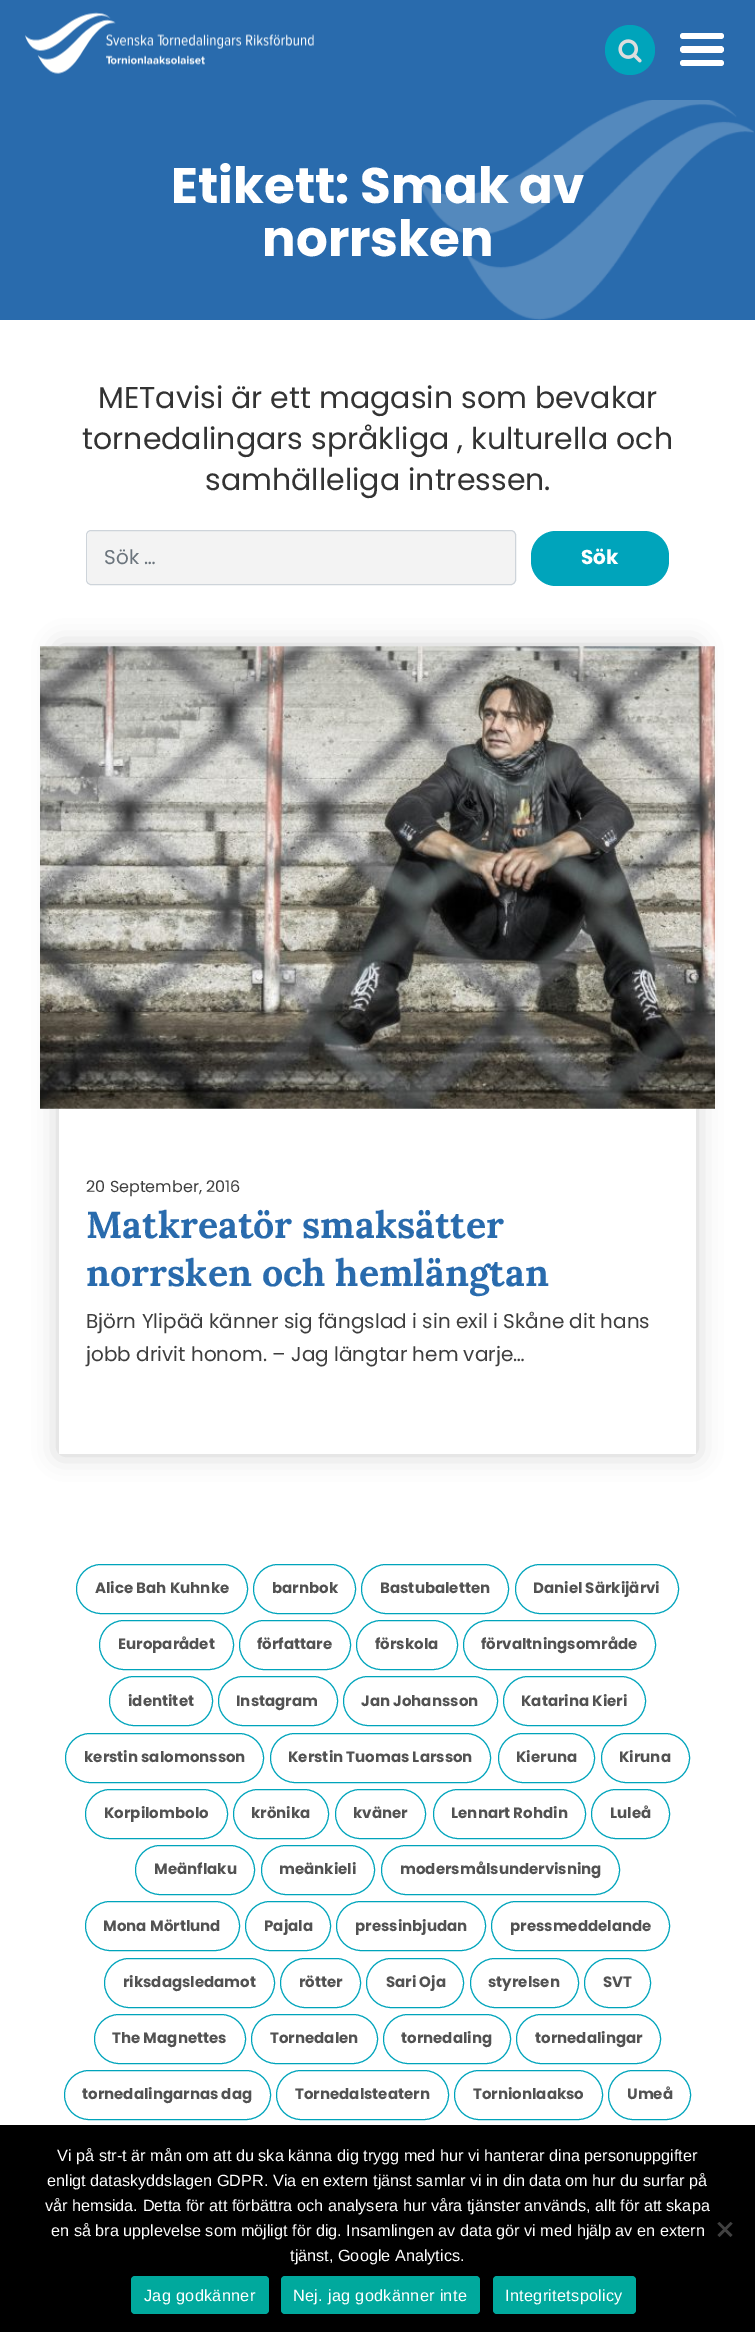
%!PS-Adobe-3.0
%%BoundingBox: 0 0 755 2332
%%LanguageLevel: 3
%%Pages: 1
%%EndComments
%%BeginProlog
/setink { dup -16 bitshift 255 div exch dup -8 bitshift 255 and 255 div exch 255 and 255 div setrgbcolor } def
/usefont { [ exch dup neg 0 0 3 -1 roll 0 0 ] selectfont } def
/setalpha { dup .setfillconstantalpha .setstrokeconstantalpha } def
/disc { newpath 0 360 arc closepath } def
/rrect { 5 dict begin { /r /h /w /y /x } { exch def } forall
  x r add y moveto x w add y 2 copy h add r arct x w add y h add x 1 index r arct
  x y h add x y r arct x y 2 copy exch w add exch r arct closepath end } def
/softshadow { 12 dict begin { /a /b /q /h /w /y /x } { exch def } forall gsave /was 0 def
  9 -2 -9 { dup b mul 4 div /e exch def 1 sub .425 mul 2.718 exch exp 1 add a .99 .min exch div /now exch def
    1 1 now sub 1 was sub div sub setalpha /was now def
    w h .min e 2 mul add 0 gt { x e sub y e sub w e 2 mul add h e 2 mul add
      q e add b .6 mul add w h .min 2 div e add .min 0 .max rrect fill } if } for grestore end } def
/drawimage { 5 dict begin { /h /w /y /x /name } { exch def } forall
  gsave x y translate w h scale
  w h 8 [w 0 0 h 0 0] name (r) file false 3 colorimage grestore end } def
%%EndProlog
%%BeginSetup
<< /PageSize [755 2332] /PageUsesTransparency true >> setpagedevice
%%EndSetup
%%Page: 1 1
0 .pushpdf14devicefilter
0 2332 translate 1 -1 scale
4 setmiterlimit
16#FFFFFF setink
0 0 755 2332 rectfill
16#296BAD setink
0 0 755 320 rectfill
(img1.raw) 25 12 289 62 drawimage
16#00A4BB setink
630 50 25 disc fill
(img2.raw) 618 39 24 24 drawimage
16#FFFFFF setink
680 33 44 6 3 rrect fill
680 46 44 7 3.5 rrect fill
680 60 44 6 3 rrect fill
(img3.raw) 417 100 337 220 drawimage
/Poppins-Bold 50 usefont
171 203 moveto (Etikett: Smak av) show
262 256 moveto (norrsken) show
/Poppins-Regular 30 usefont
16#333333 setink
[
    [(METavisi är ett magasin som bevakar) 98 408]
    [(tornedalingars språkliga , kulturella och) 82 449]
    [(samhälleliga intressen.) 205 490]
] { aload pop moveto show } forall
16#F3F3F3 setink
88 531 427 53 4 rrect fill
16#CED4DA setink
86.5 530.5 429 54 4.5 rrect stroke
/Poppins-Regular 20 usefont
16#6C757D setink
104 564 moveto (Sök …) show
16#00A4BB setink
531 531 138 55 25 rrect fill
/Poppins-Bold 20 usefont
16#FFFFFF setink
581 564 moveto (Sök) show
gsave
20 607 moveto 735 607 lineto 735 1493 lineto 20 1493 lineto closepath 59 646 moveto 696 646 lineto 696 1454 lineto 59 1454 lineto closepath eoclip newpath
16#CDCDCD setink
59 646 637 808 0 12.5 1 softshadow
grestore
(img4.raw) 40 646 675 463 drawimage
/Poppins-Regular 16 usefont
16#3E3E3E setink
86 1192 moveto (20 September, 2016) show
/Lora-Bold 37.5 usefont
16#296BAD setink
86 1238 moveto (Matkreatör smaksätter) show
86 1286 moveto (norrsken och hemlängtan) show
/Poppins-Regular 20 usefont
16#3E3E3E setink
86 1328 moveto (Björn Ylipää känner sig fängslad i sin exil i Skåne dit hans) show
86 1361 moveto (jobb drivit honom. – Jag längtar hem varje…) show
16#00A4BB setink
76.5 1564.5 171 49 24.5 rrect stroke
/Poppins-Bold 15 usefont
16#525252 setink
95 1593 moveto (Alice Bah Kuhnke) show
16#00A4BB setink
253.5 1564.5 102 49 24.5 rrect stroke
16#525252 setink
272 1593 moveto (barnbok) show
16#00A4BB setink
361.5 1564.5 147 49 24.5 rrect stroke
16#525252 setink
380 1593 moveto (Bastubaletten) show
16#00A4BB setink
515.5 1564.5 163 49 24.5 rrect stroke
16#525252 setink
533 1593 moveto (Daniel Särkijärvi) show
16#00A4BB setink
99.5 1620.5 134 49 24.5 rrect stroke
16#525252 setink
118 1649 moveto (Europarådet) show
16#00A4BB setink
239.5 1620.5 111 49 24.5 rrect stroke
16#525252 setink
257 1649 moveto (författare) show
16#00A4BB setink
356.5 1620.5 101 49 24.5 rrect stroke
16#525252 setink
375 1649 moveto (förskola) show
16#00A4BB setink
463.5 1620.5 192 49 24.5 rrect stroke
16#525252 setink
481 1649 moveto (förvaltningsområde) show
16#00A4BB setink
109.5 1676.5 103 49 24.5 rrect stroke
16#525252 setink
128 1706 moveto (identitet) show
16#00A4BB setink
218.5 1676.5 119 49 24.5 rrect stroke
16#525252 setink
236 1706 moveto (Instagram) show
16#00A4BB setink
343.5 1676.5 154 49 24.5 rrect stroke
16#525252 setink
361 1706 moveto (Jan Johansson) show
16#00A4BB setink
503.5 1676.5 142 49 24.5 rrect stroke
16#525252 setink
521 1706 moveto (Katarina Kieri) show
16#00A4BB setink
65.5 1733.5 198 49 24.5 rrect stroke
16#525252 setink
84 1762 moveto (kerstin salomonsson) show
16#00A4BB setink
270.5 1733.5 220 49 24.5 rrect stroke
16#525252 setink
288 1762 moveto (Kerstin Tuomas Larsson) show
16#00A4BB setink
498.5 1733.5 96 49 24.5 rrect stroke
16#525252 setink
516 1762 moveto (Kieruna) show
16#00A4BB setink
601.5 1733.5 88 49 24.5 rrect stroke
16#525252 setink
619 1762 moveto (Kiruna) show
16#00A4BB setink
85.5 1789.5 142 49 24.5 rrect stroke
16#525252 setink
104 1818 moveto (Korpilombolo) show
16#00A4BB setink
233.5 1789.5 95 49 24.5 rrect stroke
16#525252 setink
251 1818 moveto (krönika) show
16#00A4BB setink
335.5 1789.5 90 49 24.5 rrect stroke
16#525252 setink
353 1818 moveto (kväner) show
16#00A4BB setink
433.5 1789.5 152 49 24.5 rrect stroke
16#525252 setink
451 1818 moveto (Lennart Rohdin) show
16#00A4BB setink
591.5 1789.5 78 49 24.5 rrect stroke
16#525252 setink
610 1818 moveto (Luleå) show
16#00A4BB setink
135.5 1845.5 119 49 24.5 rrect stroke
16#525252 setink
154 1874 moveto (Meänflaku) show
16#00A4BB setink
261.5 1845.5 113 49 24.5 rrect stroke
16#525252 setink
279 1874 moveto (meänkieli) show
16#00A4BB setink
381.5 1845.5 238 49 24.5 rrect stroke
16#525252 setink
400 1874 moveto (modersmålsundervisning) show
16#00A4BB setink
85.5 1901.5 154 49 24.5 rrect stroke
16#525252 setink
103 1931 moveto (Mona Mörtlund) show
16#00A4BB setink
245.5 1901.5 85 49 24.5 rrect stroke
16#525252 setink
264 1931 moveto (Pajala) show
16#00A4BB setink
336.5 1901.5 149 49 24.5 rrect stroke
16#525252 setink
355 1931 moveto (pressinbjudan) show
16#00A4BB setink
491.5 1901.5 178 49 24.5 rrect stroke
16#525252 setink
510 1931 moveto (pressmeddelande) show
16#00A4BB setink
104.5 1958.5 170 49 24.5 rrect stroke
16#525252 setink
123 1987 moveto (riksdagsledamot) show
16#00A4BB setink
280.5 1958.5 80 49 24.5 rrect stroke
16#525252 setink
299 1987 moveto (rötter) show
16#00A4BB setink
366.5 1958.5 97 49 24.5 rrect stroke
16#525252 setink
386 1987 moveto (Sari Oja) show
16#00A4BB setink
470.5 1958.5 108 49 24.5 rrect stroke
16#525252 setink
488 1987 moveto (styrelsen) show
16#00A4BB setink
584.5 1958.5 66 49 24.5 rrect stroke
16#525252 setink
603 1987 moveto (SVT) show
16#00A4BB setink
94.5 2014.5 151 49 24.5 rrect stroke
16#525252 setink
112 2043 moveto (The Magnettes) show
16#00A4BB setink
251.5 2014.5 126 49 24.5 rrect stroke
16#525252 setink
270 2043 moveto (Tornedalen) show
16#00A4BB setink
383.5 2014.5 127 49 24.5 rrect stroke
16#525252 setink
401 2043 moveto (tornedaling) show
16#00A4BB setink
516.5 2014.5 144 49 24.5 rrect stroke
16#525252 setink
535 2043 moveto (tornedalingar) show
16#00A4BB setink
64.5 2070.5 206 49 24.5 rrect stroke
16#525252 setink
82 2099 moveto (tornedalingarnas dag) show
16#00A4BB setink
276.5 2070.5 172 49 24.5 rrect stroke
16#525252 setink
295 2099 moveto (Tornedalsteatern) show
16#00A4BB setink
454.5 2070.5 148 49 24.5 rrect stroke
16#525252 setink
473 2099 moveto (Tornionlaakso) show
16#00A4BB setink
608.5 2070.5 82 49 24.5 rrect stroke
16#525252 setink
627 2099 moveto (Umeå) show
16#000000 setink
0 2125 755 207 rectfill
/LiberationSans-Regular 16.25 usefont
16#FFFFFF setink
[
    [(Vi på str-t är mån om att du ska känna dig trygg med hur vi hanterar dina personuppgifter) 57 2161]
    [(enligt dataskyddslagen GDPR. Via en extern tjänst samlar vi in din data om hur du surfar på) 47 2186]
    [(vår hemsida. Detta för att förbättra och analysera hur våra tjänster används, allt för att skapa) 45 2211]
    [(en så bra upplevelse som möjligt för dig. Insamlingen av data gör vi med hjälp av en extern) 51 2236]
    [(tjänst, Google Analytics.) 290 2261]
] { aload pop moveto show } forall
16#404040 setink
730.5 2222 moveto 732.5 2223.5 lineto 719.5 2237 lineto 717.5 2235 lineto closepath fill
717.5 2223.5 moveto 719.5 2222 lineto 732.5 2235 lineto 730.5 2237 lineto closepath fill
16#00A99D setink
131 2276 138 38 4 rrect fill
16#FFFFFF setink
144 2301 moveto 0.3 0 (Jag godkänner) ashow
16#00A99D setink
281 2276 199 38 4 rrect fill
16#FFFFFF setink
293 2301 moveto 0.3 0 (Nej. jag godkänner inte) ashow
16#00A99D setink
493 2276 143 38 4 rrect fill
16#FFFFFF setink
505 2301 moveto 0.3 0 (Integritetspolicy) ashow
.poppdf14devicefilter showpage
%%EOF
